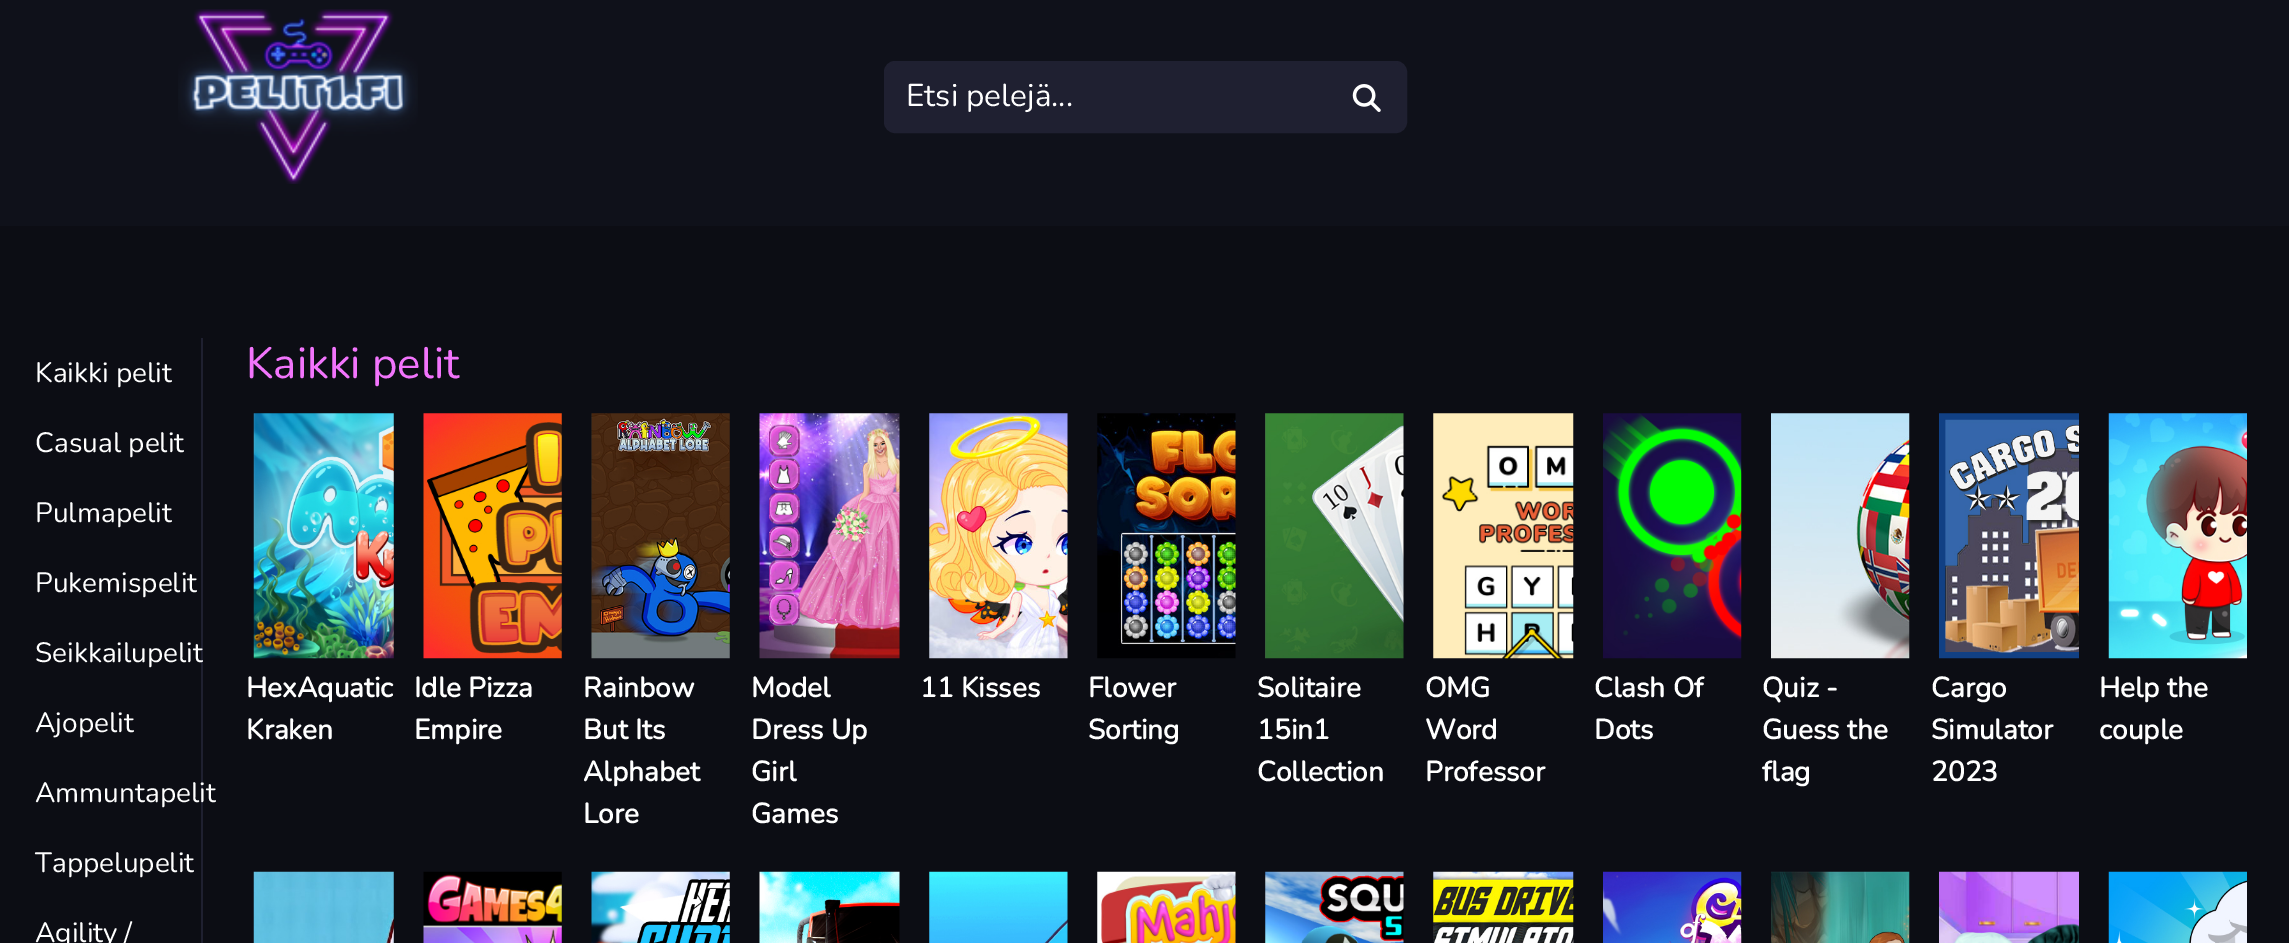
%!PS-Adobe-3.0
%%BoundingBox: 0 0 2289 943
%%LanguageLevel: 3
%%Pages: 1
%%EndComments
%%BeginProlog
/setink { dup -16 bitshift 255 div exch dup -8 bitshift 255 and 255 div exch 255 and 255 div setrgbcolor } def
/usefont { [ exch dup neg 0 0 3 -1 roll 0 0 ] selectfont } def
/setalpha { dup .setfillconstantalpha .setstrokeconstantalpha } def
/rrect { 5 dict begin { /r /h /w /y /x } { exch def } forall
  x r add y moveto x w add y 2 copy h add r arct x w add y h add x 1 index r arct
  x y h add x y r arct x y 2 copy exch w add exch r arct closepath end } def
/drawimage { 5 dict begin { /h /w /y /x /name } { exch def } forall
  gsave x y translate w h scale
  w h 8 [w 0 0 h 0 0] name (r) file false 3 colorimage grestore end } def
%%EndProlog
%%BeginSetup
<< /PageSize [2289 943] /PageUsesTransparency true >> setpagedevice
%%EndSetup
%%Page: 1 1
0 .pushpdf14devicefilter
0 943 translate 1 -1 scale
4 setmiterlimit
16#0C0D14 setink
0 0 2289 943 rectfill
16#0F111A setink
0 0 2289 226 rectfill
(img1.raw) 178 9 240 175 drawimage
16#1F2031 setink
886 63 519 68 9 rrect fill
0.9 setalpha
16#212233 setink
2 setlinewidth
885 62 521 70 10 rrect stroke
/Nunito-ExtraLight 31.5 usefont
1 setalpha
16#FFFFFF setink
906 106 moveto (Etsi pelejä...) show
(img2.raw) 1352 84 29 28 drawimage
16#1F2030 setink
201 338 2 605 rectfill
/Nunito-ExtraLight 28 usefont
16#FFFFFF setink
[
    [(Kaikki pelit) 35 382]
    [(Casual pelit) 35 452]
    [(Pulmapelit) 35 522]
    [(Pukemispelit) 35 592]
    [(Seikkailupelit) 35 662]
    [(Ajopelit) 35 732]
    [(Ammuntapelit) 35 802]
    [(Tappelupelit) 35 872]
    [(Agility /) 35 942]
] { aload pop moveto show } forall
/Nunito-ExtraLight 43.75 usefont
16#F274FC setink
246 378 moveto (Kaikki pelit) show
(img3.raw) 253 413 141 246 drawimage
/Nunito-Bold 28 usefont
16#FFFFFF setink
246 697 moveto (HexAquatic) show
246 739 moveto (Kraken) show
(img4.raw) 423 413 139 246 drawimage
414 697 moveto (Idle Pizza) show
414 739 moveto (Empire) show
(img5.raw) 591 413 139 246 drawimage
[
    [(Rainbow) 583 697]
    [(But Its) 583 739]
    [(Alphabet) 583 781]
    [(Lore) 583 823]
] { aload pop moveto show } forall
(img6.raw) 759 413 141 246 drawimage
[
    [(Model) 751 697]
    [(Dress Up) 751 739]
    [(Girl) 751 781]
    [(Games) 751 823]
] { aload pop moveto show } forall
(img7.raw) 929 413 139 246 drawimage
920 697 moveto (11 Kisses) show
(img8.raw) 1097 413 139 246 drawimage
1088 697 moveto (Flower) show
1088 739 moveto (Sorting) show
(img9.raw) 1265 413 139 246 drawimage
[
    [(Solitaire) 1257 697]
    [(15in1) 1257 739]
    [(Collection) 1257 781]
] { aload pop moveto show } forall
(img10.raw) 1433 413 141 246 drawimage
[
    [(OMG) 1425 697]
    [(Word) 1425 739]
    [(Professor) 1425 781]
] { aload pop moveto show } forall
(img11.raw) 1603 413 139 246 drawimage
1594 697 moveto (Clash Of) show
1594 739 moveto (Dots) show
(img12.raw) 1771 413 139 246 drawimage
[
    [(Quiz -) 1762 697]
    [(Guess the) 1762 739]
    [(flag) 1762 781]
] { aload pop moveto show } forall
(img13.raw) 1939 413 140 246 drawimage
[
    [(Cargo) 1931 697]
    [(Simulator) 1931 739]
    [(2023) 1931 781]
] { aload pop moveto show } forall
(img14.raw) 2108 413 139 246 drawimage
2099 697 moveto (Help the) show
2099 739 moveto (couple) show
(img15.raw) 253 871 141 72 drawimage
(img16.raw) 423 871 139 72 drawimage
(img17.raw) 591 871 139 72 drawimage
(img18.raw) 759 871 141 72 drawimage
(img19.raw) 929 871 139 72 drawimage
(img20.raw) 1097 871 139 72 drawimage
(img21.raw) 1265 871 139 72 drawimage
(img22.raw) 1433 871 141 72 drawimage
(img23.raw) 1603 871 139 72 drawimage
(img24.raw) 1771 871 139 72 drawimage
(img25.raw) 1939 871 140 72 drawimage
(img26.raw) 2108 871 139 72 drawimage
.poppdf14devicefilter showpage
%%EOF
